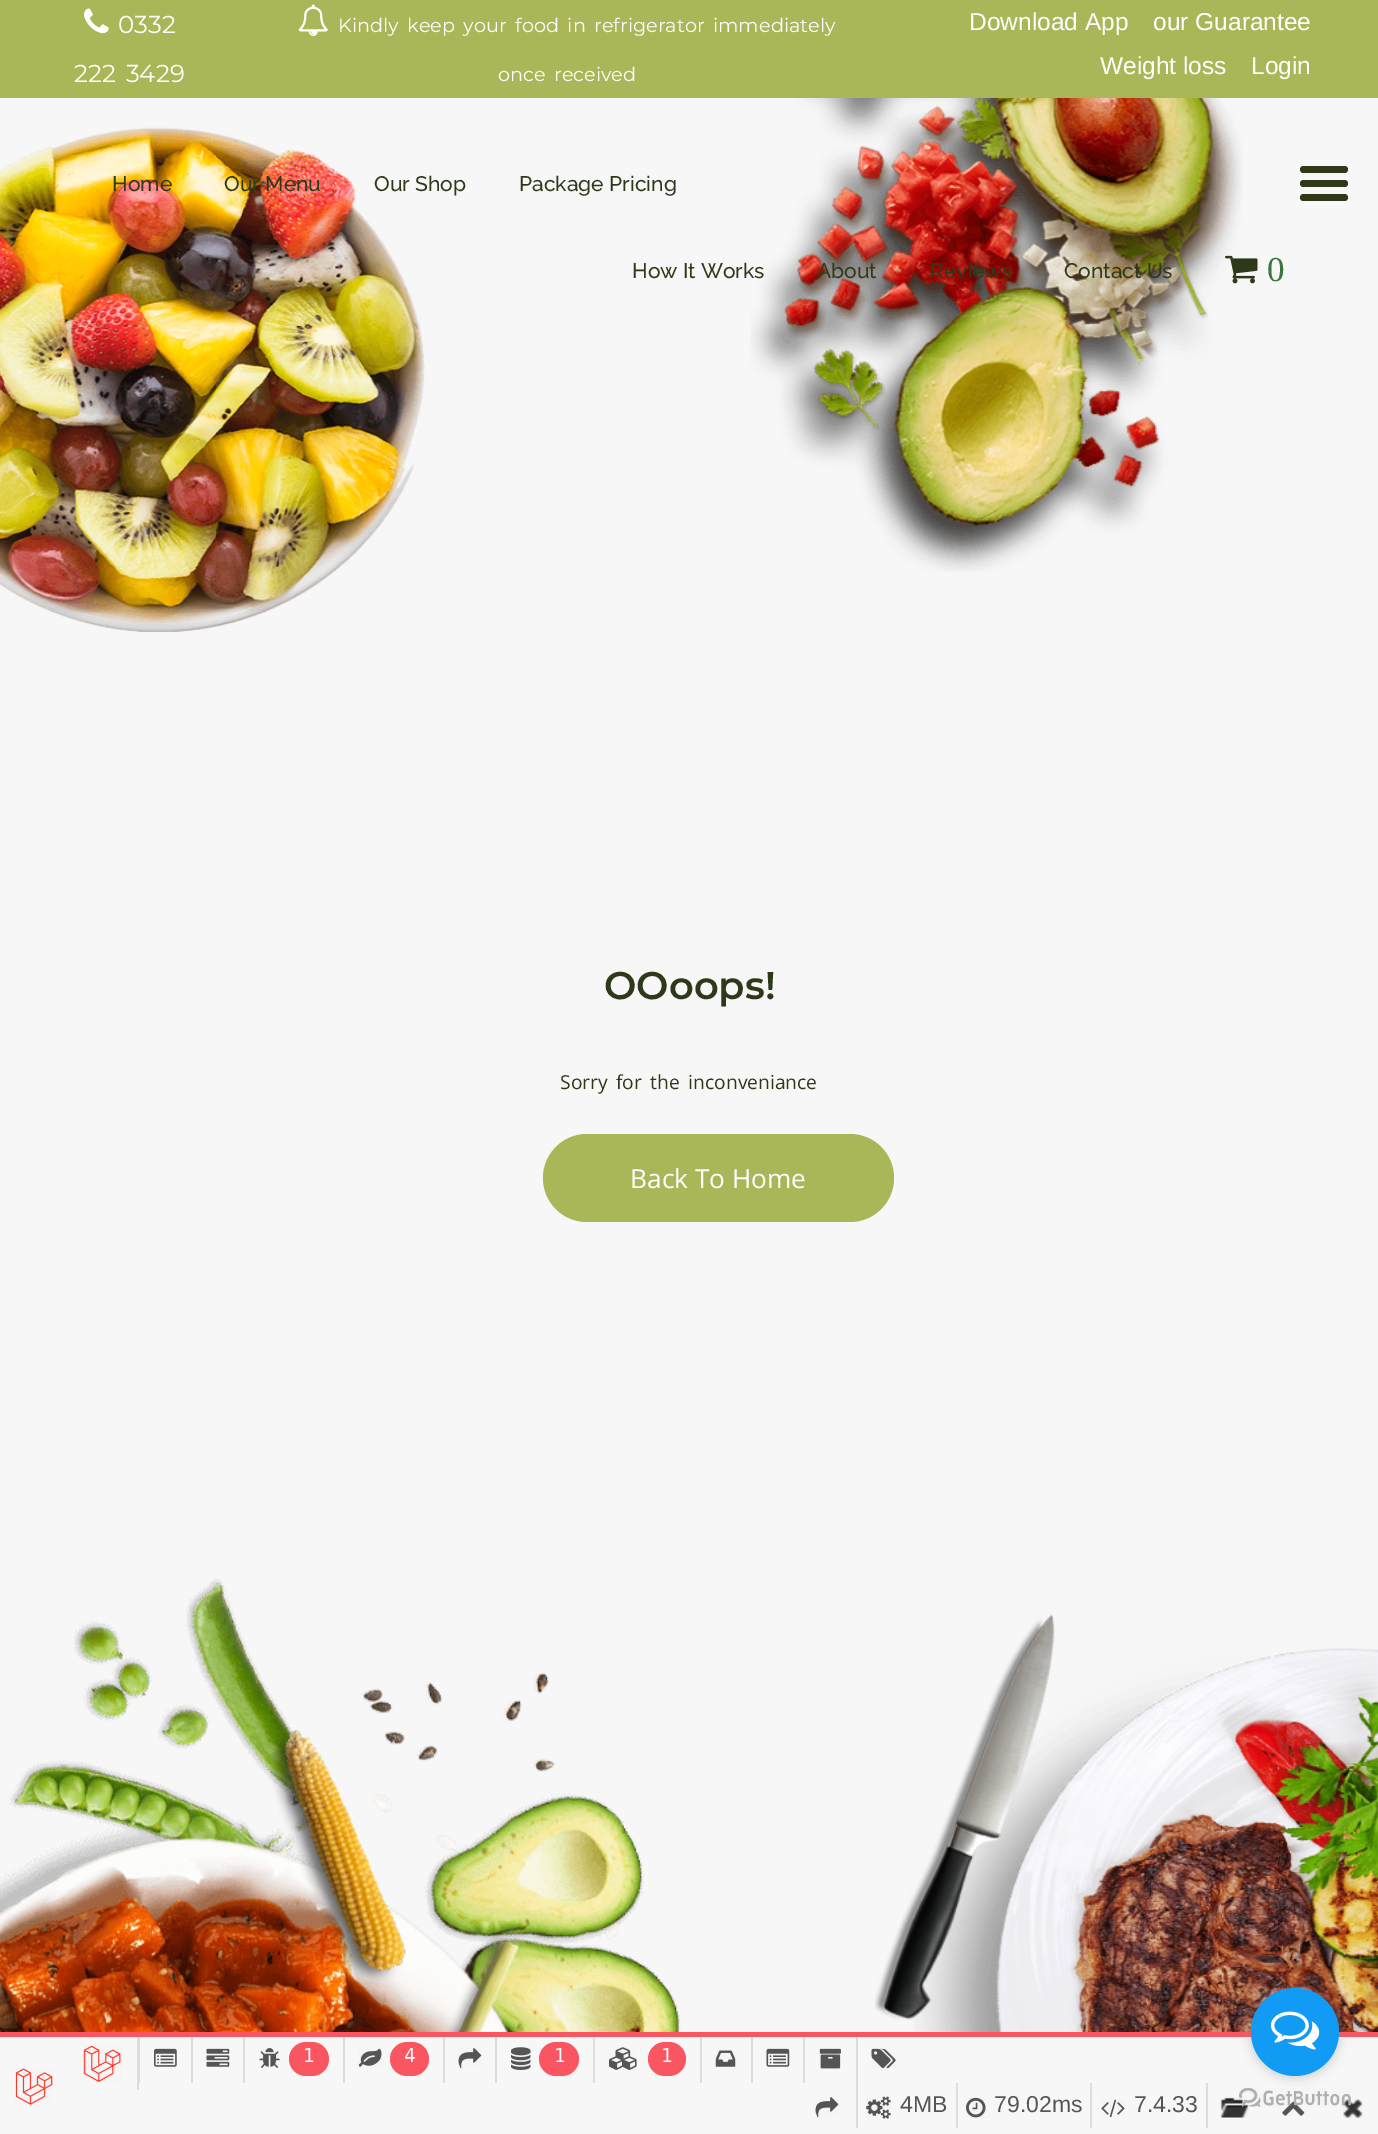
%!PS-Adobe-3.0
%%BoundingBox: 0 0 1378 2134
%%LanguageLevel: 3
%%Pages: 1
%%EndComments
%%BeginProlog
/setink { dup -16 bitshift 255 div exch dup -8 bitshift 255 and 255 div exch 255 and 255 div setrgbcolor } def
/usefont { [ exch dup neg 0 0 3 -1 roll 0 0 ] selectfont } def
/setalpha { dup .setfillconstantalpha .setstrokeconstantalpha } def
/disc { newpath 0 360 arc closepath } def
/rrect { 5 dict begin { /r /h /w /y /x } { exch def } forall
  x r add y moveto x w add y 2 copy h add r arct x w add y h add x 1 index r arct
  x y h add x y r arct x y 2 copy exch w add exch r arct closepath end } def
/softshadow { 12 dict begin { /a /b /q /h /w /y /x } { exch def } forall gsave /was 0 def
  9 -2 -9 { dup b mul 4 div /e exch def 1 sub .425 mul 2.718 exch exp 1 add a .99 .min exch div /now exch def
    1 1 now sub 1 was sub div sub setalpha /was now def
    w h .min e 2 mul add 0 gt { x e sub y e sub w e 2 mul add h e 2 mul add
      q e add b .6 mul add w h .min 2 div e add .min 0 .max rrect fill } if } for grestore end } def
/drawimage { 5 dict begin { /h /w /y /x /name } { exch def } forall
  gsave x y translate w h scale
  w h 8 [w 0 0 h 0 0] name (r) file false 3 colorimage grestore end } def
%%EndProlog
%%BeginSetup
<< /PageSize [1378 2134] /PageUsesTransparency true >> setpagedevice
%%EndSetup
%%Page: 1 1
0 .pushpdf14devicefilter
0 2134 translate 1 -1 scale
4 setmiterlimit
16#F7F7F7 setink
0 0 1378 2134 rectfill
16#A9B758 setink
0 0 1378 98 rectfill
(img1.raw) 84 8 25 26 drawimage
/Montserrat-Regular 24.5 usefont
16#FFFFFF setink
118 33 moveto (0332) show
74 82 moveto 3.5 0 32 (222 3429) widthshow
(img2.raw) 298 4 30 32 drawimage
/Montserrat-Regular 19.25 usefont
338 32 moveto 3.5 0 32 (Kindly keep your food in refrigerator immediately) widthshow
498 81 moveto 3.5 0 32 (once received) widthshow
/LiberationSans-Regular 24.5 usefont
[
    [(Download App) 969 30]
    [(our Guarantee) 1153 30]
    [(Weight loss) 1100 74]
    [(Login) 1251 74]
] { aload pop moveto show } forall
(img4.raw) 0 127 425 505 drawimage
/Raleway-Medium 21 usefont
16#2E3919 setink
[
    [(Home) 112 191]
    [(Our Menu) 224 191]
    [(Our Shop) 374 191]
    [(Package Pricing) 519 191]
] { aload pop moveto show } forall
(img5.raw) 750 98 493 474 drawimage
[
    [(How It Works) 632 278]
    [(About) 817 278]
    [(Reviews) 930 278]
    [(Contact Us) 1064 278]
] { aload pop moveto show } forall
(img3.raw) 1225 255 33 29 drawimage
/LiberationSerif-Regular 35 usefont
16#3C763D setink
1267 281 moveto (0) show
16#2E3919 setink
1300 166 48 7 3.5 rrect fill
1300 180 48 7 3.5 rrect fill
1300 194 48 7 3.5 rrect fill
/Montserrat-SemiBold 38.5 usefont
604 999 moveto (OOoops!) show
/OpenSans-Regular 19.25 usefont
560 1089 moveto 3.5 0 32 (Sorry for the inconveniance) widthshow
16#A9B758 setink
543 1134 351 88 44 rrect fill
/OpenSans-Regular 26.25 usefont
16#FFFFFF setink
630 1188 moveto (Back To Home) show
(img6.raw) 0 1578 681 454 drawimage
(img10.raw) 913 1648 465 384 drawimage
(img7.raw) 874 1614 181 406 drawimage
(img8.raw) 268 1729 138 255 drawimage
(img9.raw) 446 1935 76 97 drawimage
16#FA5661 setink
0 2032 1378 5 rectfill
(img11.raw) 15 2068 38 37 drawimage
(img12.raw) 83 2045 39 37 drawimage
16#DDDDDD setink
137 2037 2 53 rectfill
139 2037 1 46 rectfill
(img13.raw) 154 2048 23 19 drawimage
191 2037 2 46 rectfill
(img14.raw) 206 2048 24 19 drawimage
243 2037 2 46 rectfill
(img15.raw) 259 2048 21 20 drawimage
16#FA5661 setink
289 2042 40 34 17 rrect fill
/DejaVuSansMono-Regular 19.25 usefont
16#FFFFFF setink
303 2062 moveto (1) show
16#DDDDDD setink
343 2037 2 46 rectfill
(img16.raw) 358 2048 24 19 drawimage
16#FA5661 setink
390 2042 39 34 17 rrect fill
16#FFFFFF setink
404 2062 moveto (4) show
16#DDDDDD setink
443 2037 2 46 rectfill
(img17.raw) 458 2048 24 21 drawimage
495 2037 2 46 rectfill
(img18.raw) 511 2047 20 23 drawimage
16#FA5661 setink
539 2042 40 34 17 rrect fill
16#FFFFFF setink
554 2062 moveto (1) show
16#DDDDDD setink
593 2037 2 46 rectfill
(img19.raw) 609 2047 28 23 drawimage
16#FA5661 setink
648 2042 38 34 17 rrect fill
16#FFFFFF setink
661 2062 moveto (1) show
16#DDDDDD setink
700 2037 2 46 rectfill
(img20.raw) 715 2050 21 17 drawimage
751 2037 2 46 rectfill
(img21.raw) 766 2048 24 19 drawimage
803 2037 2 46 rectfill
(img22.raw) 819 2048 22 21 drawimage
856 2037 2 91 rectfill
(img23.raw) 871 2048 25 21 drawimage
(img24.raw) 815 2097 24 21 drawimage
956 2083 2 45 rectfill
(img25.raw) 866 2096 25 23 drawimage
/LiberationSans-Regular 23 usefont
16#555555 setink
900 2112 moveto (4MB) show
16#DDDDDD setink
1090 2083 2 45 rectfill
(img26.raw) 966 2097 20 21 drawimage
16#555555 setink
994 2112 moveto (79.02ms) show
16#DDDDDD setink
1206 2083 2 45 rectfill
(img27.raw) 1101 2099 24 19 drawimage
16#555555 setink
1134 2112 moveto (7.4.33) show
(img28.raw) 1220 2097 29 21 drawimage
(img29.raw) 1282 2101 23 15 drawimage
(img30.raw) 1343 2099 20 19 drawimage
(img32.raw) 1239 2088 112 19 drawimage
16#888888 setink
1251 1990 88 87 43.5 6 0.4 softshadow
16#129BF4 setink
1295 2032 44 disc fill
(img31.raw) 1270 2011 50 39 drawimage
.poppdf14devicefilter showpage
%%EOF
